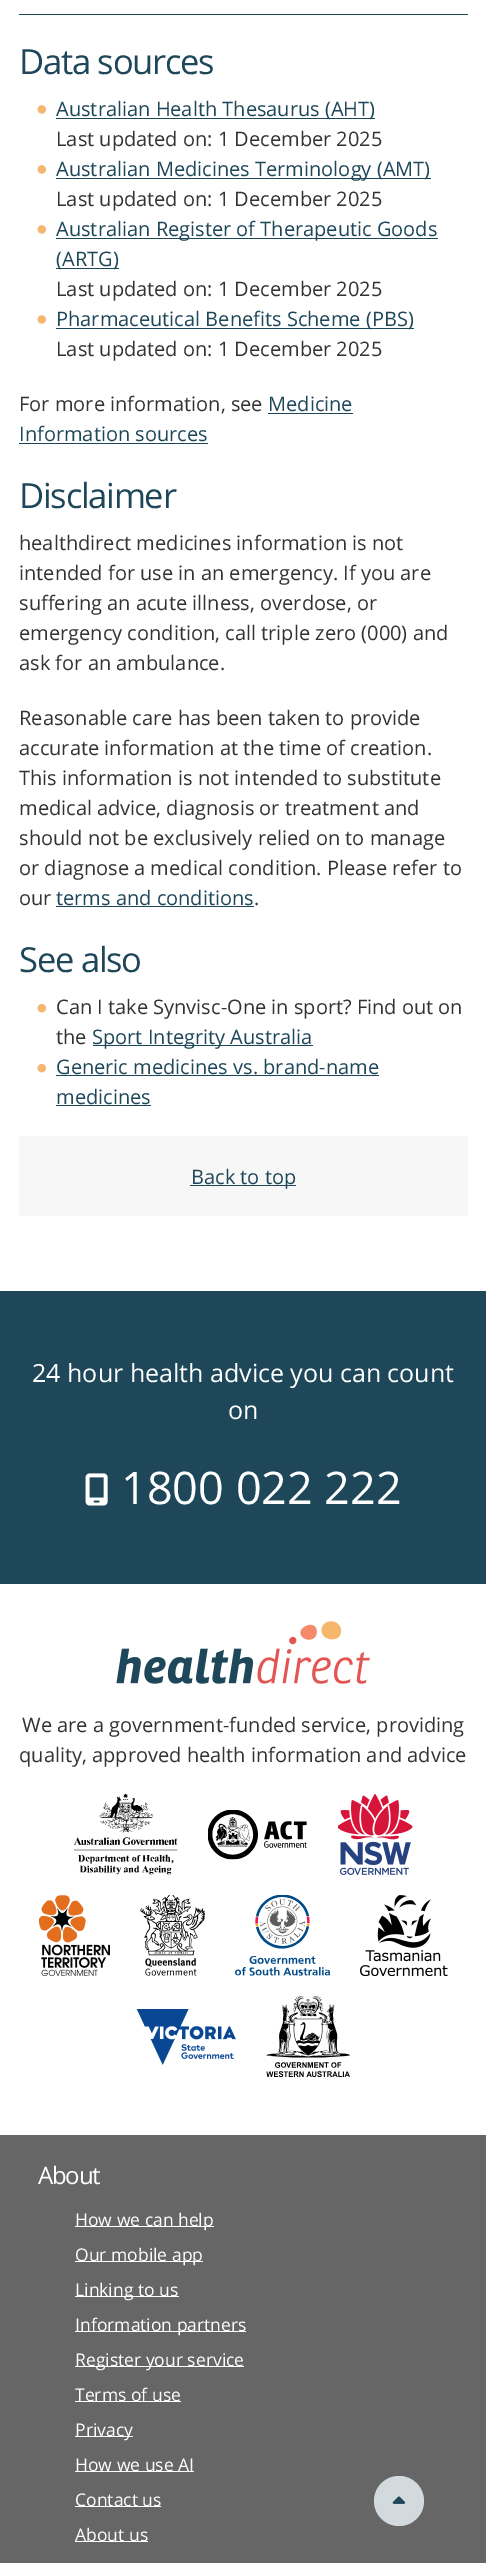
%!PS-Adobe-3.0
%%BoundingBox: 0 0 486 2563
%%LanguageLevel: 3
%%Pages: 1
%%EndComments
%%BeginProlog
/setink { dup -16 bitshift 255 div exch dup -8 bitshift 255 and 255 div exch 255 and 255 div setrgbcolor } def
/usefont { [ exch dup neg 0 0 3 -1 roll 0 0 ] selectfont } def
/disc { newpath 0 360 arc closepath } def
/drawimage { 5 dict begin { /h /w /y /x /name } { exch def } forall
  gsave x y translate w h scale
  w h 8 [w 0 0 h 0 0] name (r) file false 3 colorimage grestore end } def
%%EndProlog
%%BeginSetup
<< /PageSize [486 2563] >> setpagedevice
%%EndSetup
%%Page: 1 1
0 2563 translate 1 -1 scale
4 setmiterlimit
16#FFFFFF setink
0 0 486 2563 rectfill
16#1E4759 setink
19 14 449 1 rectfill
/OpenSans-Regular 34.5 usefont
19 74 moveto -1.25 0 (Data sources) ashow
(img1.raw) 37 105 10 9 drawimage
56 118 319 1 rectfill
/OpenSans-Regular 20 usefont
56 116 moveto (Australian Health Thesaurus \(AHT\)) show
16#333333 setink
56 146 moveto (Last updated on: 1 December 2025) show
(img1.raw) 37 165 10 9 drawimage
16#1E4759 setink
56 178 375 1 rectfill
56 176 moveto (Australian Medicines Terminology \(AMT\)) show
16#333333 setink
56 206 moveto (Last updated on: 1 December 2025) show
(img1.raw) 37 225 10 9 drawimage
16#1E4759 setink
56 238 382 1 rectfill
56 236 moveto (Australian Register of Therapeutic Goods) show
56 268 63 1 rectfill
56 266 moveto (\(ARTG\)) show
16#333333 setink
56 296 moveto (Last updated on: 1 December 2025) show
(img1.raw) 37 315 10 9 drawimage
16#1E4759 setink
56 328 358 1 rectfill
56 326 moveto (Pharmaceutical Benefits Scheme \(PBS\)) show
16#333333 setink
56 356 moveto (Last updated on: 1 December 2025) show
19 411 moveto (For more information, see) show
16#1E4759 setink
268 411 moveto (Medicine) show
268 413 85 1 rectfill
19 441 moveto (Information sources) show
19 443 189 1 rectfill
/OpenSans-Regular 34.5 usefont
19 508 moveto -1.25 0 (Disclaimer) ashow
/OpenSans-Regular 20 usefont
16#333333 setink
[
    [(healthdirect medicines information is not) 19 550]
    [(intended for use in an emergency. If you are) 19 580]
    [(suffering an acute illness, overdose, or) 19 610]
    [(emergency condition, call triple zero \(000\) and) 19 640]
    [(ask for an ambulance.) 19 670]
    [(Reasonable care has been taken to provide) 19 725]
    [(accurate information at the time of creation.) 19 755]
    [(This information is not intended to substitute) 19 785]
    [(medical advice, diagnosis or treatment and) 19 815]
    [(should not be exclusively relied on to manage) 19 845]
    [(or diagnose a medical condition. Please refer to) 19 875]
    [(our) 19 905]
] { aload pop moveto show } forall
16#1E4759 setink
56 905 moveto (terms and conditions) show
56 906 198 1 rectfill
16#333333 setink
254 905 moveto (.) show
/OpenSans-Regular 34.5 usefont
16#1E4759 setink
19 972 moveto -1.25 0 (See also) ashow
(img2.raw) 37 1003 10 10 drawimage
/OpenSans-Regular 20 usefont
16#333333 setink
56 1014 moveto (Can I take Synvisc-One in sport? Find out on) show
56 1044 moveto (the) show
16#1E4759 setink
93 1045 220 1 rectfill
92 1044 moveto (Sport Integrity Australia) show
(img2.raw) 37 1063 10 10 drawimage
56 1074 moveto (Generic medicines vs. brand-name) show
56 1075 323 1 rectfill
56 1104 moveto (medicines) show
[
    [56 1105 95 1 16#1E4759]
    [19 1136 449 80 16#F7F7F7]
    [190 1185 106 1 16#1E4759]
] { aload pop setink rectfill } forall
191 1184 moveto (Back to top) show
16#666666 setink
0 2135 486 428 rectfill
16#D2DADD setink
399 2501 25 disc fill
(img3.raw) 392 2496 14 8 drawimage
16#1E4759 setink
0 1291 486 293 rectfill
/OpenSans-Regular 25 usefont
16#FFFFFF setink
32 1382 moveto (24 hour health advice you can count) show
228 1419 moveto (on) show
(img4.raw) 85 1473 23 33 drawimage
/OpenSans-Regular 45 usefont
121 1504 moveto (1800 022 222) show
(img5.raw) 116 1621 254 63 drawimage
/OpenSans-Regular 20 usefont
16#333333 setink
22 1732 moveto (We are a government-funded service, providing) show
19 1762 moveto (quality, approved health information and advice) show
(img6.raw) 74 1793 104 82 drawimage
(img7.raw) 208 1810 99 50 drawimage
(img8.raw) 338 1794 75 81 drawimage
(img9.raw) 39 1895 71 81 drawimage
(img10.raw) 140 1895 65 81 drawimage
(img11.raw) 235 1895 95 81 drawimage
(img12.raw) 360 1895 88 81 drawimage
(img13.raw) 136 2009 100 56 drawimage
(img14.raw) 266 1996 84 81 drawimage
/OpenSans-Regular 24 usefont
16#FFFFFF setink
38 2184 moveto -1.25 0 (About) ashow
75 2226 139 1 rectfill
/OpenSans-Regular 17.5 usefont
75 2226 moveto (How we can help) show
75 2261 128 1 rectfill
75 2261 moveto (Our mobile app) show
75 2296 104 1 rectfill
75 2296 moveto (Linking to us) show
75 2331 171 1 rectfill
75 2331 moveto (Information partners) show
75 2366 169 1 rectfill
75 2366 moveto (Register your service) show
75 2401 106 1 rectfill
75 2401 moveto (Terms of use) show
75 2436 58 1 rectfill
75 2436 moveto (Privacy) show
75 2471 119 1 rectfill
75 2471 moveto (How we use AI) show
75 2506 86 1 rectfill
75 2506 moveto (Contact us) show
75 2541 73 1 rectfill
75 2541 moveto (About us) show
showpage
%%EOF
